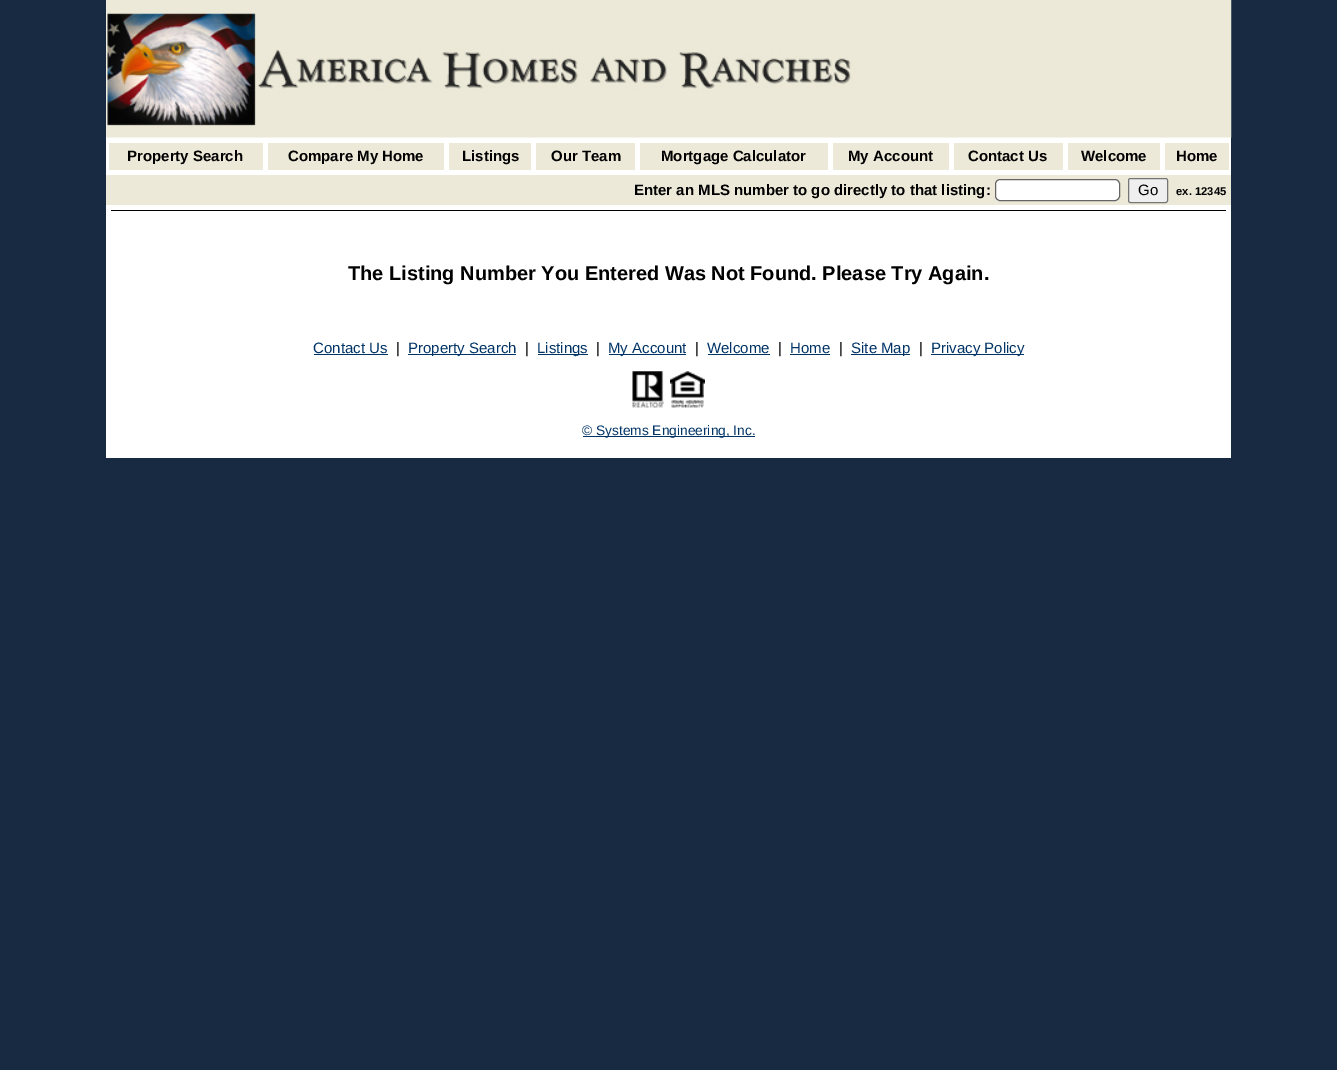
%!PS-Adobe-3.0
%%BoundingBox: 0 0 1337 1070
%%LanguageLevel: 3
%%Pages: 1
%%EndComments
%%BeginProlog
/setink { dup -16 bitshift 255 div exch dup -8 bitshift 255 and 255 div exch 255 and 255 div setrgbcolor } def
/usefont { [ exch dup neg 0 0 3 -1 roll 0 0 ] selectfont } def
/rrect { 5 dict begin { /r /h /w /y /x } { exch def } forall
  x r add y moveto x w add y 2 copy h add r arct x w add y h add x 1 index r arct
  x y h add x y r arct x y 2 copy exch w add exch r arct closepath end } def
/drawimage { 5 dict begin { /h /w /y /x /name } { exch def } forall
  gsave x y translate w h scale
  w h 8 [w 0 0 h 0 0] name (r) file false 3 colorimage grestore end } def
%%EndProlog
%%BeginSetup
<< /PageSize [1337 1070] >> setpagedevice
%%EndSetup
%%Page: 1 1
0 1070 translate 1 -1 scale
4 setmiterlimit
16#172A42 setink
0 0 1337 1070 rectfill
16#FFFFFF setink
106 0 1125 458 rectfill
(img1.raw) 106 0 1126 138 drawimage
16#ECE9D8 setink
109 143 154 27 rectfill
/LiberationSans-Bold 15 usefont
16#000000 setink
127 161 moveto (Property Search) show
16#ECE9D8 setink
268 143 176 27 rectfill
16#000000 setink
288 161 moveto (Compare My Home) show
16#ECE9D8 setink
449 143 82 27 rectfill
16#000000 setink
462 161 moveto (Listings) show
16#ECE9D8 setink
536 143 99 27 rectfill
16#000000 setink
551 161 moveto (Our Team) show
16#ECE9D8 setink
640 143 188 27 rectfill
16#000000 setink
661 161 moveto (Mortgage Calculator) show
16#ECE9D8 setink
833 143 116 27 rectfill
16#000000 setink
848 161 moveto (My Account) show
16#ECE9D8 setink
954 143 109 27 rectfill
16#000000 setink
968 161 moveto (Contact Us) show
16#ECE9D8 setink
1068 143 92 27 rectfill
16#000000 setink
1081 161 moveto (Welcome) show
16#ECE9D8 setink
1165 143 64 27 rectfill
16#000000 setink
1176 161 moveto (Home) show
16#ECE9D8 setink
106 175 1125 30 rectfill
16#000000 setink
634 195 moveto (Enter an MLS number to go directly to that listing:) show
16#FFFFFF setink
995.5 179.5 124 21 4.5 rrect gsave fill grestore
16#666666 setink
stroke
16#EFEFEF setink
1128.5 178.5 39 24 2 rrect gsave fill grestore
16#767676 setink
stroke
/LiberationSans-Regular 15 usefont
16#000000 setink
1138 195 moveto (Go) show
/LiberationSans-Bold 11.25 usefont
1176 195 moveto (ex. 12345) show
111 210 1115 1 rectfill
/LiberationSans-Bold 20 usefont
348 280 moveto (The Listing Number You Entered Was Not Found. Please Try Again.) show
/LiberationSans-Regular 15 usefont
16#003366 setink
313 353 moveto (Contact Us) show
314 354 74 1 rectfill
16#000000 setink
396 353 moveto (|) show
16#003366 setink
408 354 108 1 rectfill
408 353 moveto (Property Search) show
16#000000 setink
525 353 moveto (|) show
16#003366 setink
538 354 50 1 rectfill
537 353 moveto (Listings) show
16#000000 setink
596 353 moveto (|) show
16#003366 setink
609 354 77 1 rectfill
608 353 moveto (My Account) show
16#000000 setink
695 353 moveto (|) show
16#003366 setink
707 353 moveto (Welcome) show
708 354 62 1 rectfill
16#000000 setink
778 353 moveto (|) show
16#003366 setink
790 353 moveto (Home) show
790 354 40 1 rectfill
16#000000 setink
839 353 moveto (|) show
16#003366 setink
851 354 59 1 rectfill
851 353 moveto (Site Map) show
16#000000 setink
919 353 moveto (|) show
16#003366 setink
931 354 93 1 rectfill
931 353 moveto (Privacy Policy) show
(img2.raw) 632 371 32 37 drawimage
(img3.raw) 670 371 35 37 drawimage
583 436 172 1 rectfill
/LiberationSans-Regular 13.75 usefont
582 435 moveto (© Systems Engineering, Inc.) show
showpage
%%EOF
